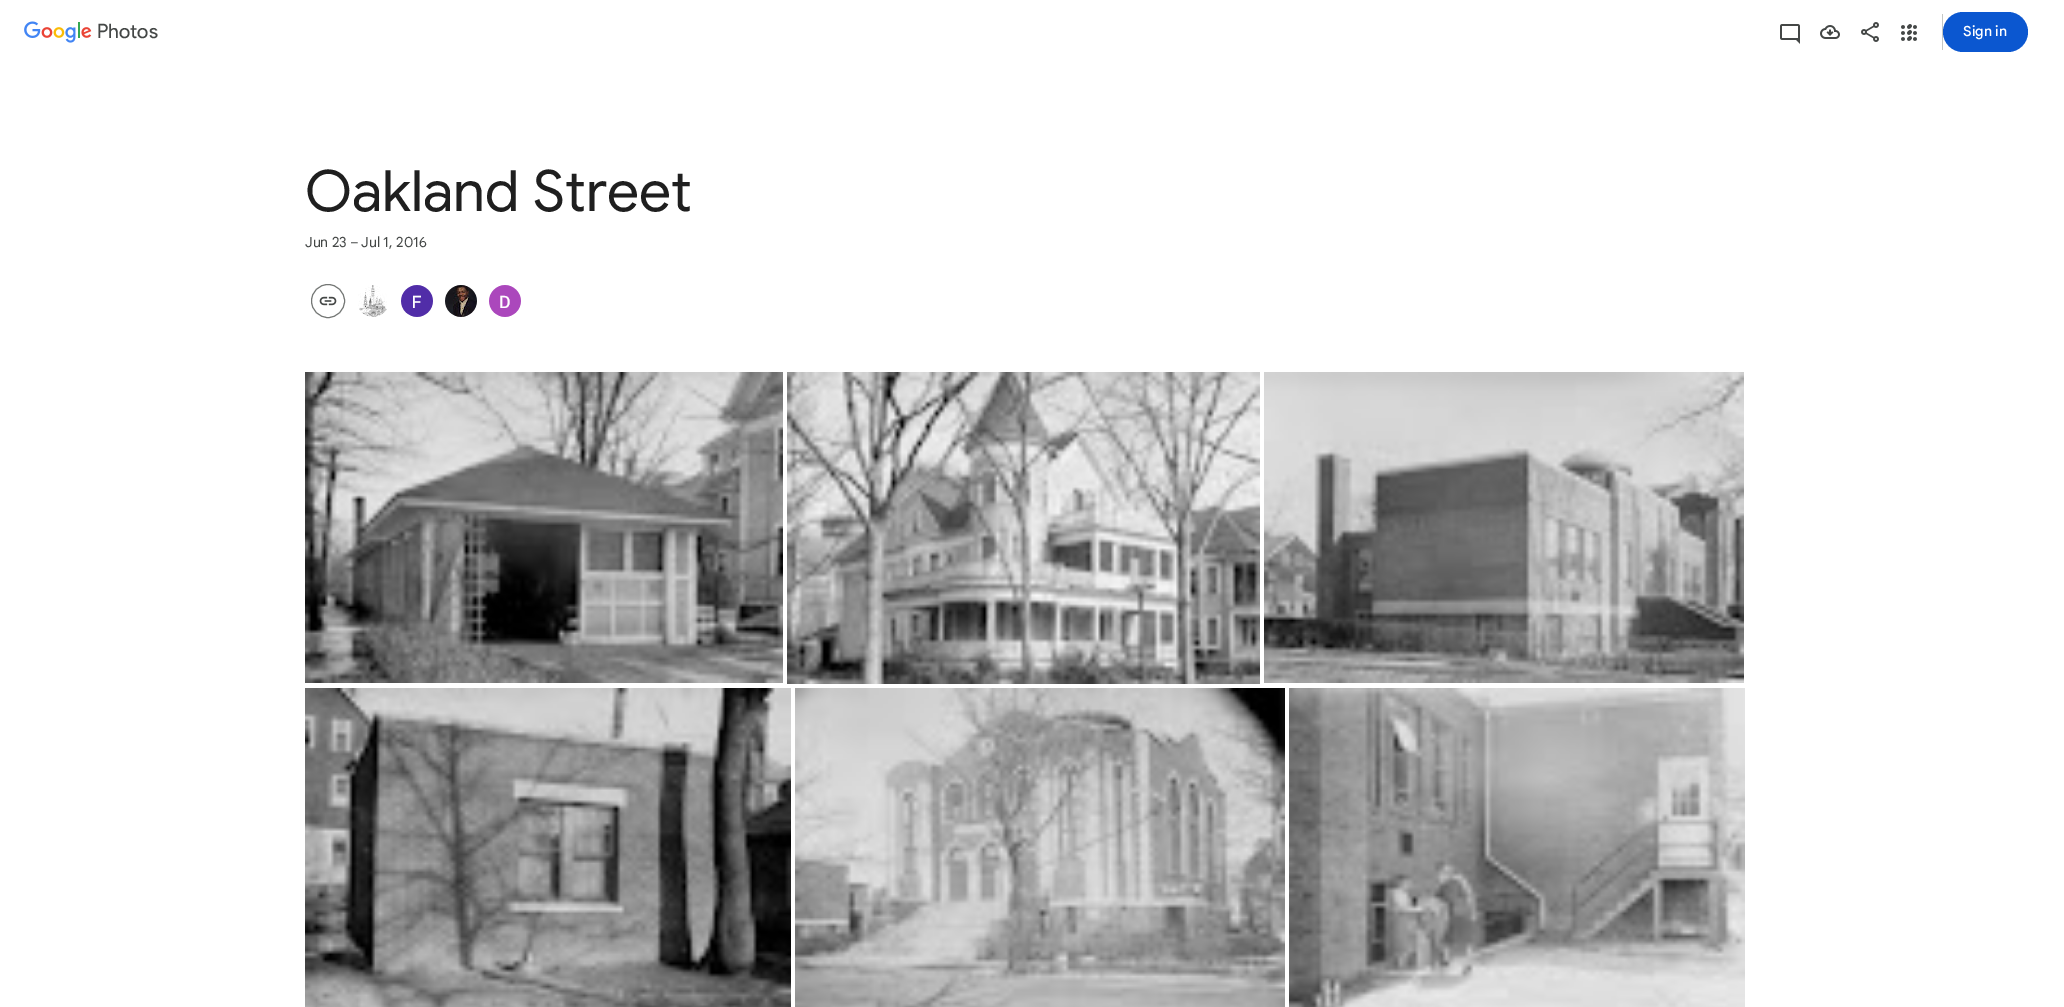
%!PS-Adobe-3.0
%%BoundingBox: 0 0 2064 1007
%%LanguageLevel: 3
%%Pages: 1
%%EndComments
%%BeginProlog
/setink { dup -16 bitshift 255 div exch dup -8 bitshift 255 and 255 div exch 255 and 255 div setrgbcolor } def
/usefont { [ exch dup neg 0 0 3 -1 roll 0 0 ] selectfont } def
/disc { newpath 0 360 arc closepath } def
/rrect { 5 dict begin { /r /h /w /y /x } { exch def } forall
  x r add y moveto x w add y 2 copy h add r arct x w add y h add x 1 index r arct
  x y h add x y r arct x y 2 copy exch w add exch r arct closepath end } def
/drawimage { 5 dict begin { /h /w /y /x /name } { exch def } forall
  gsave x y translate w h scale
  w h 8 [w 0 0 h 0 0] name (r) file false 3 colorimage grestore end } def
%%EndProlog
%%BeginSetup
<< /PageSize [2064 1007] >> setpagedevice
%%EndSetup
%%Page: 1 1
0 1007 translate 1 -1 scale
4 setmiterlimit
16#FFFFFF setink
0 0 2064 1007 rectfill
(img1.raw) 24 21 68 22 drawimage
/ProductSans-Regular 20 usefont
16#444746 setink
97 38 moveto (Photos) show
(img2.raw) 1780 24 20 20 drawimage
(img3.raw) 1820 25 20 14 drawimage
(img4.raw) 1861 22 18 20 drawimage
(img5.raw) 1908 24 4 16 drawimage
16#C4C7C5 setink
1942 14 1 36 rectfill
/GoogleSans-Regular 57 usefont
16#1F1F1F setink
305 211 moveto (Oakland Street) show
/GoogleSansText-Regular 14 usefont
16#444746 setink
305 247 moveto (Jun 23 – Jul 1, 2016) show
16#747775 setink
328 301 16.5 disc stroke
(img6.raw) 319 296 18 10 drawimage
(img7.raw) 358 285 29 32 drawimage
(img8.raw) 401 285 32 32 drawimage
(img9.raw) 445 285 32 32 drawimage
(img10.raw) 489 285 32 32 drawimage
(img11.raw) 305 372 478 311 drawimage
(img12.raw) 787 372 473 312 drawimage
(img13.raw) 1264 372 480 311 drawimage
(img14.raw) 305 688 486 319 drawimage
(img15.raw) 795 688 490 319 drawimage
(img16.raw) 1289 688 456 319 drawimage
(img17.raw) 1901 25 16 16 drawimage
16#0B57D0 setink
1943 12 85 40 20 rrect fill
/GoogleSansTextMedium-Medium 14 usefont
16#FFFFFF setink
1963 36 moveto (Sign in) show
showpage
%%EOF
